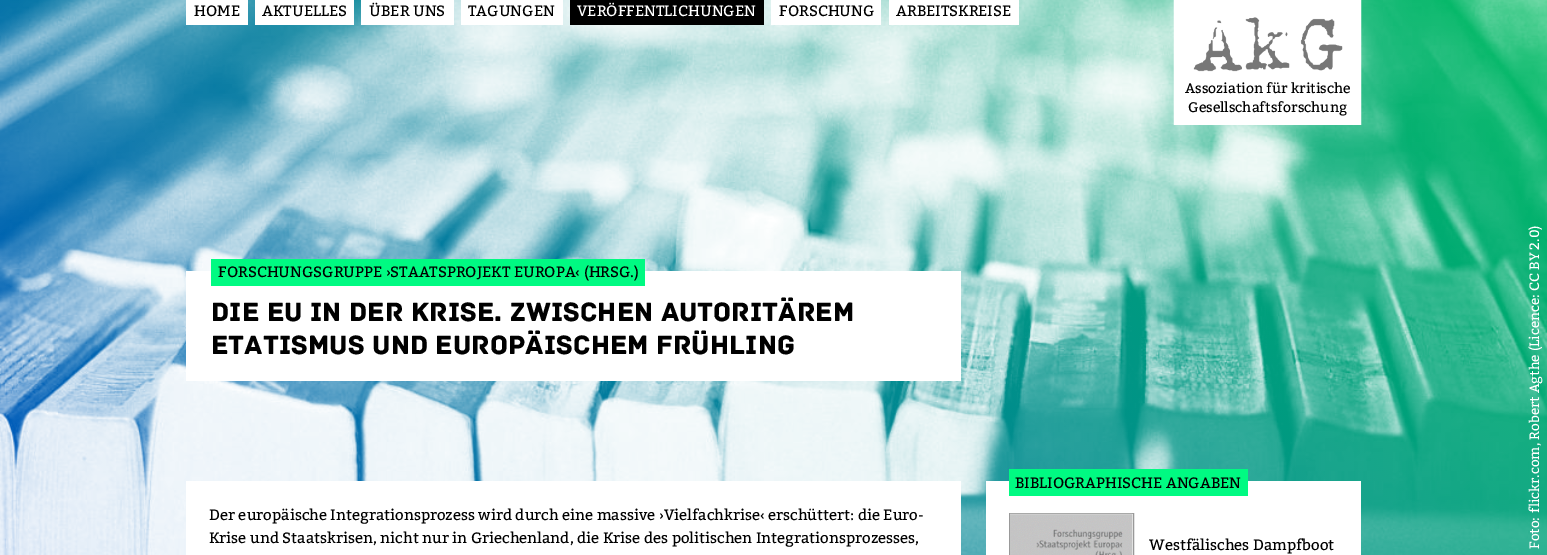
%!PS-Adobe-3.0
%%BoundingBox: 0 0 1547 555
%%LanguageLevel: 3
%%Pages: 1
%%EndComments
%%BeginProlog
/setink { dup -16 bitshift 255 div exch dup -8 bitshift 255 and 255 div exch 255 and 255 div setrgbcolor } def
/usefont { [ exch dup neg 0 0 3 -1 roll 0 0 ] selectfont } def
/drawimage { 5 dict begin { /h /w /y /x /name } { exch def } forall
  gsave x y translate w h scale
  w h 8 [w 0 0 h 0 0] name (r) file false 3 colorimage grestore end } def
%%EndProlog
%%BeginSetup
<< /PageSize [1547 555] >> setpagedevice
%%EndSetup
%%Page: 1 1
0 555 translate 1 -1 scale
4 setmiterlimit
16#FFFFFF setink
0 0 1547 555 rectfill
(img3.raw) 0 0 1547 555 drawimage
186 0 62 25 rectfill
/Bitter-Regular 15 usefont
16#000000 setink
194 16 moveto (HOME) show
16#FFFFFF setink
255 0 99 25 rectfill
16#000000 setink
262 16 moveto (AKTUELLES) show
16#FFFFFF setink
361 0 93 25 rectfill
16#000000 setink
369 16 moveto (ÜBER UNS) show
16#FFFFFF setink
461 0 102 25 rectfill
16#000000 setink
468 16 moveto (TAGUNGEN) show
570 0 194 25 rectfill
16#FFFFFF setink
577 16 moveto (VERÖFFENTLICHUNGEN) show
771 0 110 25 rectfill
16#000000 setink
779 16 moveto (FORSCHUNG) show
16#FFFFFF setink
889 0 130 25 rectfill
16#000000 setink
896 16 moveto (ARBEITSKREISE) show
(img1.raw) 1173 0 189 125 drawimage
/Bitter-Regular 14 usefont
1185 93 moveto (Assoziation für kritische) show
1188 112 moveto (Gesellschaftsforschung) show
16#FFFFFF setink
186 271 775 110 rectfill
16#00FA82 setink
211 259 434 27 rectfill
/Bitter-Regular 15 usefont
16#000000 setink
218 277 moveto (FORSCHUNGSGRUPPE ›STAATSPROJEKT EUROPA‹ \(HRSG.\)) show
/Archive-Regular 27.9 usefont
211 321 moveto (DIE EU IN DER KRISE. ZWISCHEN AUTORITÄREM) show
211 354 moveto (ETATISMUS UND EUROPÄISCHEM FRÜHLING) show
16#FFFFFF setink
186 481 775 74 rectfill
/Bitter-Regular 15 usefont
16#000000 setink
209 520 moveto (Der europäische Integrationsprozess wird durch eine massive ›Vielfachkrise‹ erschüttert: die Euro-) show
209 543 moveto (Krise und Staatskrisen, nicht nur in Griechenland, die Krise des politischen Integrationsprozesses,) show
16#FFFFFF setink
986 481 375 74 rectfill
16#00FA82 setink
1009 469 239 27 rectfill
16#000000 setink
1015 488 moveto (BIBLIOGRAPHISCHE ANGABEN) show
16#999999 setink
1009.5 513.5 124 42 rectstroke
(img2.raw) 1010 513 123 42 drawimage
16#000000 setink
1149 550 moveto (Westfälisches Dampfboot) show
/Bitter-Regular 13.5 usefont
16#FFFFFF setink
gsave 1539 513 translate -90 rotate 0 0 moveto (flickr.com, Robert Agthe \(Licence: CC BY 2.0\)) show grestore
gsave 1539 549 translate -90 rotate 0 0 moveto (Foto:) show grestore
showpage
%%EOF
